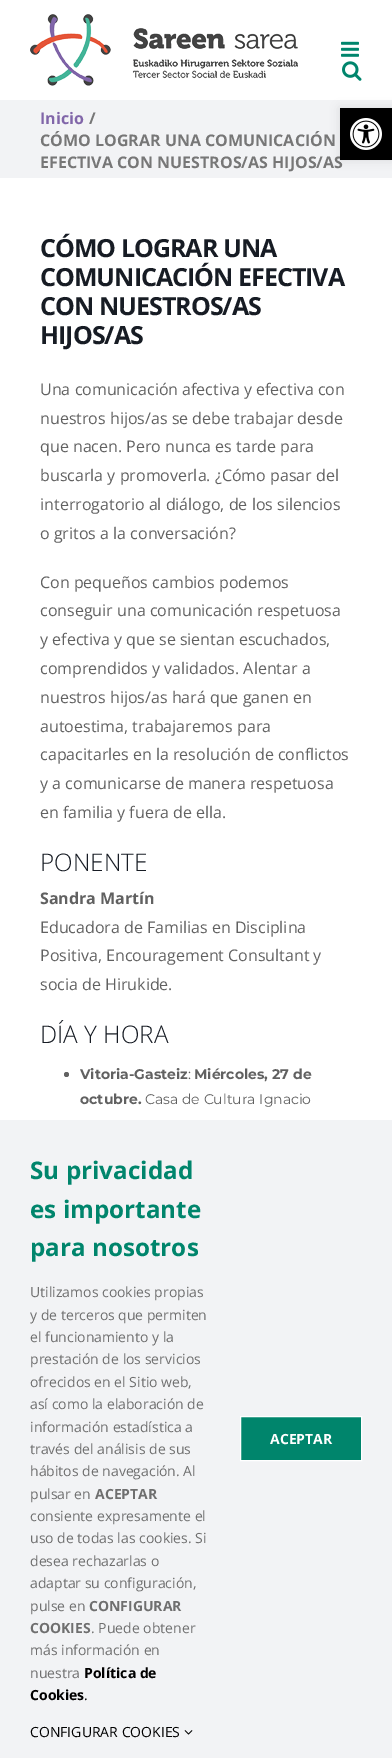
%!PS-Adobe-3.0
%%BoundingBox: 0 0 392 1758
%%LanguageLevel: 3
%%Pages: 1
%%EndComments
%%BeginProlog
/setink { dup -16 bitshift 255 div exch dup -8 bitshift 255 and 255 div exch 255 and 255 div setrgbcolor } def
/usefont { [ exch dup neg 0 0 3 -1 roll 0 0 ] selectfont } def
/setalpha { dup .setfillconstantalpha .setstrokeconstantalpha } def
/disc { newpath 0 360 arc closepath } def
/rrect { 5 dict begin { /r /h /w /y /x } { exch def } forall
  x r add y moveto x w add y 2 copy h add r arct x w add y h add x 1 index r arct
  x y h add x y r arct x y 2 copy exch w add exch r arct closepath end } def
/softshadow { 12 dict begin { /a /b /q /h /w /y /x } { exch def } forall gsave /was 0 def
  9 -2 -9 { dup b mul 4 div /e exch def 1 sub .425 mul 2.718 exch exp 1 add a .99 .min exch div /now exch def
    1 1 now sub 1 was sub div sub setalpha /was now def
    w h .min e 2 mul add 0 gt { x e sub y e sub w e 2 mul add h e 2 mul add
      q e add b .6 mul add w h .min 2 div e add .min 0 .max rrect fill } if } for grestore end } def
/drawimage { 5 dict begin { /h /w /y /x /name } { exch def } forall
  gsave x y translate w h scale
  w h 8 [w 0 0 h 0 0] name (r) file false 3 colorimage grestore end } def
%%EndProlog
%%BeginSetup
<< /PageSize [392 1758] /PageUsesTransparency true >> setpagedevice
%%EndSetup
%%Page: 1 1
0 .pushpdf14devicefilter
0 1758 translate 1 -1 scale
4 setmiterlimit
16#FFFFFF setink
0 0 392 1758 rectfill
(img1.raw) 30 14 268 72 drawimage
(img2.raw) 341 41 18 16 drawimage
(img3.raw) 342 61 20 20 drawimage
16#F2F3F5 setink
0 100 392 78 rectfill
/OpenSans-Bold 16 usefont
16#8166A9 setink
40 124 moveto (Inicio) show
16#777777 setink
[
    [(/) 89 124]
    [(CÓMO LOGRAR UNA COMUNICACIÓN) 40 146]
    [(EFECTIVA CON NUESTROS/AS HIJOS/AS) 40 168]
] { aload pop moveto show } forall
/OpenSans-Bold 25 usefont
16#171C24 setink
40 257 moveto -1 0 (CÓMO LOGRAR UNA) ashow
40 286 moveto -1 0 (COMUNICACIÓN EFECTIVA) ashow
40 315 moveto -1 0 (CON NUESTROS/AS) ashow
40 344 moveto -1 0 (HIJOS/AS) ashow
/OpenSans-Regular 16 usefont
16#616161 setink
[
    [(Una comunicación afectiva y efectiva con) 40 395]
    [(nuestros hijos/as se debe trabajar desde) 40 424]
    [(que nacen. Pero nunca es tarde para) 40 452]
    [(buscarla y promoverla. ¿Cómo pasar del) 40 481]
    [(interrogatorio al diálogo, de los silencios) 40 510]
    [(o gritos a la conversación?) 40 539]
    [(Con pequeños cambios podemos) 40 588]
    [(conseguir una comunicación respetuosa) 40 616]
    [(y efectiva y que se sientan escuchados,) 40 645]
    [(comprendidos y validados. Alentar a) 40 674]
    [(nuestros hijos/as hará que ganen en) 40 703]
    [(autoestima, trabajaremos para) 40 732]
    [(capacitarles en la resolución de conflictos) 40 760]
    [(y a comunicarse de manera respetuosa) 40 789]
    [(en familia y fuera de ella.) 40 818]
] { aload pop moveto show } forall
/OpenSans-Light 24.25 usefont
16#171C24 setink
40 871 moveto (PONENTE) show
/OpenSans-Bold 16 usefont
16#616161 setink
40 904 moveto (Sandra Martín) show
/OpenSans-Regular 16 usefont
[
    [(Educadora de Familias en Disciplina) 40 933]
    [(Positiva, Encouragement Consultant y) 40 961]
    [(socia de Hirukide.) 40 990]
] { aload pop moveto show } forall
/OpenSans-Light 24.25 usefont
16#171C24 setink
40 1043 moveto (DÍA Y HORA) show
16#626262 setink
66.5 1074.5 2.5 disc fill
/Montserrat-Bold 14 usefont
16#616161 setink
80 1079 moveto (Vitoria-Gasteiz) show
/Montserrat-Regular 14 usefont
188 1079 moveto (:) show
/Montserrat-Bold 14 usefont
194 1079 moveto (Miércoles, 27 de) show
80 1104 moveto (octubre.) show
/Montserrat-Regular 14 usefont
145 1104 moveto (Casa de Cultura Ignacio) show
16#000000 setink
340 108 52 52 0 5 0.1 softshadow
340 108 52 52 rectfill
(img4.raw) 350 118 32 32 drawimage
16#F2F3F5 setink
0 1120 392 638 rectfill
/OpenSans-Bold 24.25 usefont
16#00856C setink
[
    [(Su privacidad) 30 1179]
    [(es importante) 30 1218]
    [(para nosotros) 30 1256]
] { aload pop moveto show } forall
/OpenSans-Regular 14 usefont
16#6F6F6F setink
[
    [(Utilizamos cookies propias) 30 1297]
    [(y de terceros que permiten) 30 1320]
    [(el funcionamiento y la) 30 1342]
    [(prestación de los servicios) 30 1364]
    [(ofrecidos en el Sitio web,) 30 1387]
    [(así como la elaboración de) 30 1409]
    [(información estadística a) 30 1432]
    [(través del análisis de sus) 30 1454]
    [(hábitos de navegación. Al) 30 1476]
    [(pulsar en) 30 1499]
] { aload pop moveto show } forall
/OpenSans-Bold 14 usefont
95 1499 moveto (ACEPTAR) show
/OpenSans-Regular 14 usefont
[
    [(consiente expresamente el) 30 1521]
    [(uso de todas las cookies. Si) 30 1543]
    [(desea rechazarlas o) 30 1566]
    [(adaptar su configuración,) 30 1588]
    [(pulse en) 30 1611]
] { aload pop moveto show } forall
/OpenSans-Bold 14 usefont
89 1611 moveto (CONFIGURAR) show
30 1633 moveto (COOKIES) show
/OpenSans-Regular 14 usefont
[
    [(. Puede obtener) 91 1633]
    [(más información en) 30 1655]
    [(nuestra) 30 1678]
] { aload pop moveto show } forall
/OpenSans-Bold 14 usefont
16#000000 setink
84 1678 moveto (Política de) show
30 1700 moveto (Cookies) show
/OpenSans-Regular 14 usefont
84 1700 moveto (.) show
30 1737 moveto (CONFIGURAR COOKIES) show
(img5.raw) 184 1730 9 5 drawimage
16#00856C setink
240.5 1416.5 moveto 361.5 1416.5 lineto 361.5 1460.5 lineto 240.5 1460.5 lineto closepath gsave fill grestore
16#FFFFFF setink
stroke
/OpenSans-Bold 14 usefont
270 1444 moveto (ACEPTAR) show
.poppdf14devicefilter showpage
%%EOF
